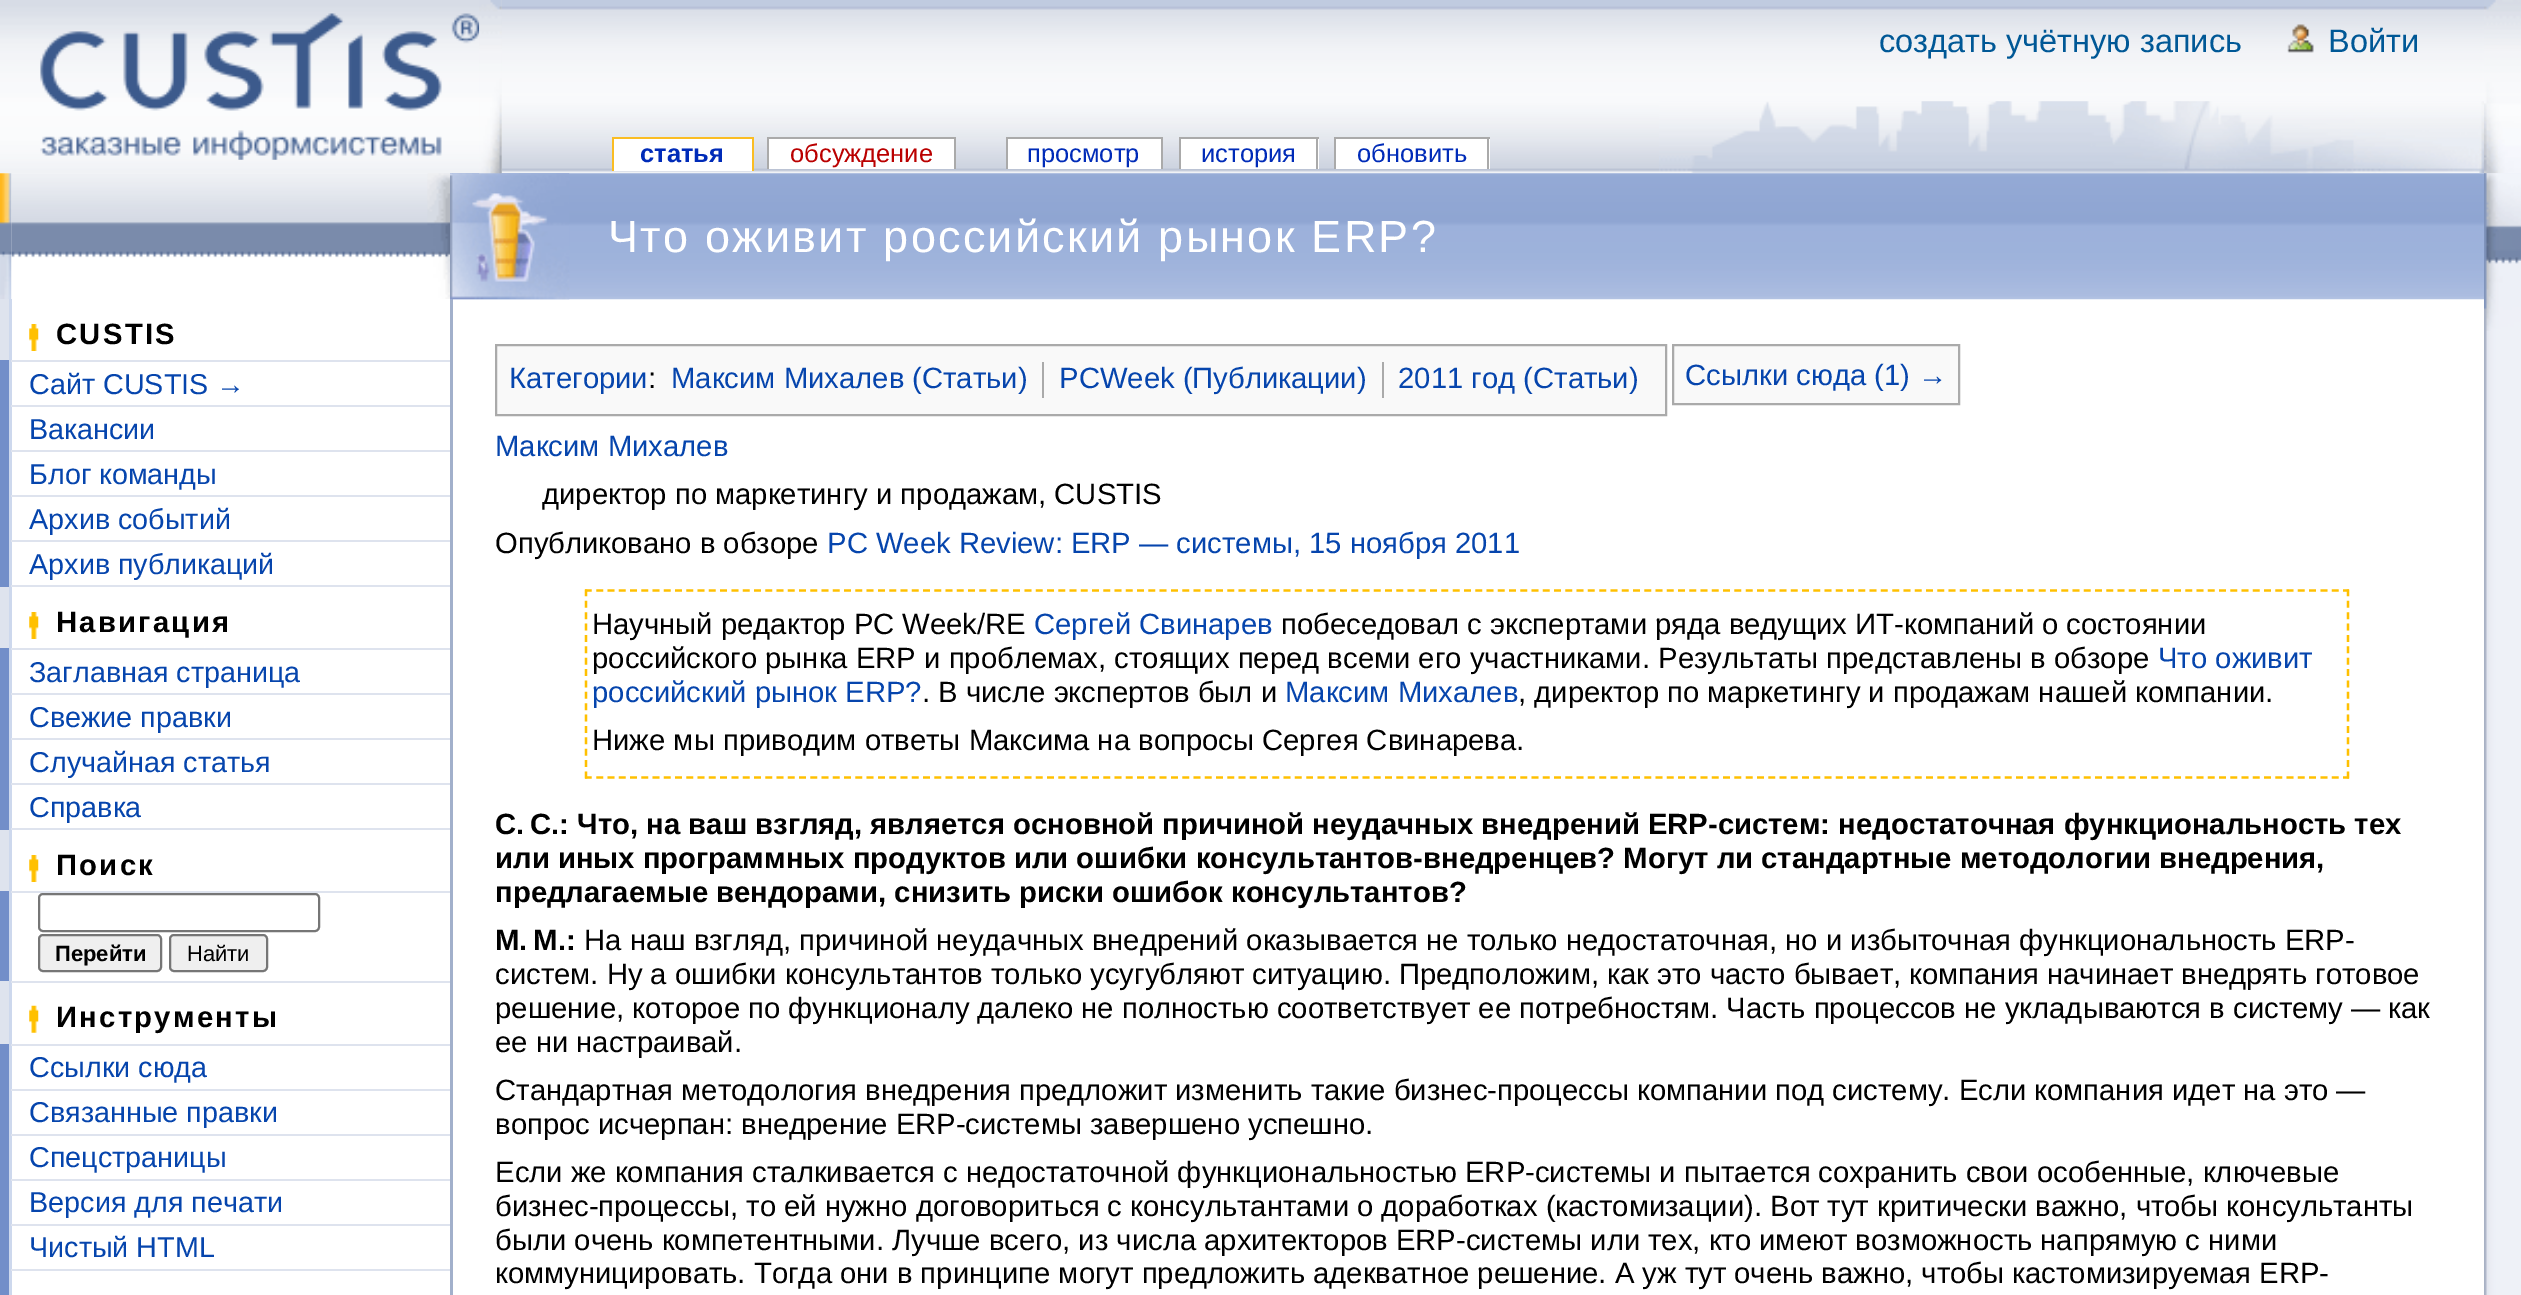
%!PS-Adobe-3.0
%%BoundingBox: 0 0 2521 1295
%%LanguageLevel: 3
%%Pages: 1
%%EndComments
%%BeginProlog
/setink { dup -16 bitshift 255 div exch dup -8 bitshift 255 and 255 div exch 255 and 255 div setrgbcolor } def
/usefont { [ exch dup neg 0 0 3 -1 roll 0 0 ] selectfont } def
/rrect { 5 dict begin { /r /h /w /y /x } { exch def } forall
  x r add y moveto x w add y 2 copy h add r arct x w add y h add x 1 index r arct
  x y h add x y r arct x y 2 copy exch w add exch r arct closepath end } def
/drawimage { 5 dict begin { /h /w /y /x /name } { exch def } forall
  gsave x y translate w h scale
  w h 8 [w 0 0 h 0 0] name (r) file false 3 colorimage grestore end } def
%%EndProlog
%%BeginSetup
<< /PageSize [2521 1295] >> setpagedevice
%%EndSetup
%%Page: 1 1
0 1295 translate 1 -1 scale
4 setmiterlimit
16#FFFFFF setink
0 0 2521 1295 rectfill
(img1.raw) 0 0 2521 174 drawimage
(img2.raw) 0 0 502 172 drawimage
(img3.raw) 40 13 440 147 drawimage
453 173 2031 1 rectfill
16#A2B0CB setink
450 173 3 1122 rectfill
(img13.raw) 450 173 2034 127 drawimage
(img14.raw) 450 173 120 127 drawimage
(img4.raw) 479 0 23 174 drawimage
/LiberationSans-Regular 32.5 usefont
16#005896 setink
1879 52 moveto (создать учётную запись) show
(img5.raw) 2287 24 27 29 drawimage
2328 52 moveto (Войти) show
(img15.raw) 2484 173 37 1122 drawimage
(img6.raw) 2484 0 37 174 drawimage
(img7.raw) 1659 101 825 72 drawimage
16#FFFFFF setink
614 139 138 32 rectfill
/LiberationSans-Bold 25.5 usefont
16#002BB8 setink
640 162 moveto (статья) show
[
    [612 137 142 2 16#FABD23]
    [752 137 2 34 16#FABD23]
    [612 137 2 34 16#FABD23]
    [769 139 185 30 16#FFFFFF]
] { aload pop setink rectfill } forall
/LiberationSans-Regular 25.5 usefont
16#BA0000 setink
790 162 moveto (обсуждение) show
[
    [767 137 189 2 16#AAAAAA]
    [954 137 2 32 16#AAAAAA]
    [767 137 2 32 16#AAAAAA]
    [1008 139 153 30 16#FFFFFF]
] { aload pop setink rectfill } forall
16#002BB8 setink
1027 162 moveto (просмотр) show
[
    [1006 137 157 2 16#AAAAAA]
    [1161 137 2 32 16#AAAAAA]
    [1006 137 2 32 16#AAAAAA]
    [1181 139 138 30 16#FFFFFF]
] { aload pop setink rectfill } forall
16#002BB8 setink
1201 162 moveto (история) show
[
    [1179 137 140 2 16#AAAAAA]
    [1316 137 2 32 16#AAAAAA]
    [1179 137 2 32 16#AAAAAA]
    [1336 139 154 30 16#FFFFFF]
] { aload pop setink rectfill } forall
16#002BB8 setink
1357 162 moveto (обновить) show
[
    [1334 137 156 2 16#AAAAAA]
    [1487 137 2 32 16#AAAAAA]
    [1334 137 2 32 16#AAAAAA]
] { aload pop setink rectfill } forall
(img9.raw) 11 173 439 85 drawimage
(img8.raw) 0 173 12 126 drawimage
(img10.raw) 427 173 23 126 drawimage
16#DEE3EE setink
0 299 9 61 rectfill
16#CDD8ED setink
9 299 3 61 rectfill
(img11.raw) 29 324 10 27 drawimage
/LiberationSans-Bold 29.25 usefont
16#000000 setink
56 344 moveto 2.25 0 (CUSTIS) ashow
[
    [0 360 11 2 16#728EC9]
    [9 360 3 45 16#CDD8ED]
    [11 360 439 2 16#DEE3EE]
    [0 362 9 43 16#728EC9]
] { aload pop setink rectfill } forall
/LiberationSans-Regular 28.75 usefont
16#0645AD setink
29 394 moveto (Сайт CUSTIS →) show
[
    [0 405 11 2 16#728EC9]
    [9 405 3 45 16#CDD8ED]
    [11 405 439 2 16#DEE3EE]
    [0 407 9 43 16#728EC9]
] { aload pop setink rectfill } forall
16#0645AD setink
29 439 moveto (Вакансии) show
[
    [0 450 11 2 16#728EC9]
    [9 450 3 45 16#CDD8ED]
    [11 450 439 2 16#DEE3EE]
    [0 452 9 43 16#728EC9]
] { aload pop setink rectfill } forall
16#0645AD setink
29 484 moveto (Блог команды) show
[
    [0 495 11 2 16#728EC9]
    [9 495 3 45 16#CDD8ED]
    [11 495 439 2 16#DEE3EE]
    [0 497 9 43 16#728EC9]
] { aload pop setink rectfill } forall
16#0645AD setink
29 529 moveto (Архив событий) show
[
    [0 540 11 2 16#728EC9]
    [9 540 3 45 16#CDD8ED]
    [11 540 439 2 16#DEE3EE]
    [0 542 9 43 16#728EC9]
] { aload pop setink rectfill } forall
16#0645AD setink
29 574 moveto (Архив публикаций) show
[
    [0 585 11 2 16#728EC9]
    [9 585 3 63 16#CDD8ED]
    [11 585 439 2 16#DEE3EE]
    [0 587 9 61 16#DEE3EE]
] { aload pop setink rectfill } forall
(img11.raw) 29 612 10 27 drawimage
/LiberationSans-Bold 29.25 usefont
16#000000 setink
56 632 moveto 2.25 0 (Навигация) ashow
[
    [0 648 11 2 16#728EC9]
    [9 648 3 45 16#CDD8ED]
    [11 648 439 2 16#DEE3EE]
    [0 650 9 43 16#728EC9]
] { aload pop setink rectfill } forall
/LiberationSans-Regular 28.75 usefont
16#0645AD setink
29 682 moveto (Заглавная страница) show
[
    [0 693 11 2 16#728EC9]
    [9 693 3 45 16#CDD8ED]
    [11 693 439 2 16#DEE3EE]
    [0 695 9 43 16#728EC9]
] { aload pop setink rectfill } forall
16#0645AD setink
29 727 moveto (Свежие правки) show
[
    [0 738 11 2 16#728EC9]
    [9 738 3 45 16#CDD8ED]
    [11 738 439 2 16#DEE3EE]
    [0 740 9 43 16#728EC9]
] { aload pop setink rectfill } forall
16#0645AD setink
29 772 moveto (Случайная статья) show
[
    [0 783 11 2 16#728EC9]
    [9 783 3 45 16#CDD8ED]
    [11 783 439 2 16#DEE3EE]
    [0 785 9 43 16#728EC9]
] { aload pop setink rectfill } forall
16#0645AD setink
29 817 moveto (Справка) show
[
    [0 828 11 2 16#728EC9]
    [9 828 3 63 16#CDD8ED]
    [11 828 439 2 16#DEE3EE]
    [0 830 9 61 16#DEE3EE]
] { aload pop setink rectfill } forall
(img11.raw) 29 855 10 27 drawimage
/LiberationSans-Bold 29.25 usefont
16#000000 setink
56 875 moveto 2.25 0 (Поиск) ashow
[
    [0 891 11 2 16#728EC9]
    [9 891 3 90 16#CDD8ED]
    [11 891 439 2 16#DEE3EE]
    [0 893 9 88 16#728EC9]
] { aload pop setink rectfill } forall
16#767676 setink
2 setlinewidth
39 894 280 37 4 rrect stroke
16#EFEFEF setink
39 935 122 36 4 rrect gsave fill grestore
16#767676 setink
stroke
/LiberationSans-Bold 22 usefont
16#000000 setink
55 961 moveto (Перейти) show
16#EFEFEF setink
170 935 97 36 4 rrect gsave fill grestore
16#767676 setink
stroke
/LiberationSans-Regular 22 usefont
16#000000 setink
187 961 moveto (Найти) show
[
    [0 981 11 2 16#DEE3EE]
    [9 981 3 63 16#CDD8ED]
    [11 981 439 2 16#DEE3EE]
    [0 983 9 61 16#DEE3EE]
] { aload pop setink rectfill } forall
(img12.raw) 29 1005 10 28 drawimage
/LiberationSans-Bold 29.25 usefont
16#000000 setink
56 1027 moveto 2.25 0 (Инструменты) ashow
[
    [0 1044 11 2 16#728EC9]
    [9 1044 3 45 16#CDD8ED]
    [11 1044 439 2 16#DEE3EE]
    [0 1046 9 43 16#728EC9]
] { aload pop setink rectfill } forall
/LiberationSans-Regular 28.75 usefont
16#0645AD setink
29 1077 moveto (Ссылки сюда) show
[
    [0 1089 11 2 16#728EC9]
    [9 1089 3 45 16#CDD8ED]
    [11 1089 439 2 16#DEE3EE]
    [0 1091 9 43 16#728EC9]
] { aload pop setink rectfill } forall
16#0645AD setink
29 1122 moveto (Связанные правки) show
[
    [0 1134 11 2 16#728EC9]
    [9 1134 3 45 16#CDD8ED]
    [11 1134 439 2 16#DEE3EE]
    [0 1136 9 43 16#728EC9]
] { aload pop setink rectfill } forall
16#0645AD setink
29 1167 moveto (Спецстраницы) show
[
    [0 1179 11 2 16#728EC9]
    [9 1179 3 45 16#CDD8ED]
    [11 1179 439 2 16#DEE3EE]
    [0 1181 9 43 16#728EC9]
] { aload pop setink rectfill } forall
16#0645AD setink
29 1212 moveto (Версия для печати) show
[
    [0 1224 11 2 16#728EC9]
    [9 1224 3 45 16#CDD8ED]
    [11 1224 439 2 16#DEE3EE]
    [0 1226 9 43 16#728EC9]
] { aload pop setink rectfill } forall
16#0645AD setink
29 1257 moveto (Чистый HTML) show
[
    [0 1269 11 2 16#728EC9]
    [9 1269 3 26 16#CDD8ED]
    [11 1269 439 2 16#DEE3EE]
    [0 1271 9 24 16#728EC9]
] { aload pop setink rectfill } forall
/LiberationSans-Regular 45 usefont
16#FFFFFF setink
608 252 moveto 2.25 0 (Что оживит российский рынок ERP?) ashow
16#F9F9F9 setink
1673 345 moveto 1959 345 lineto 1959 404 lineto 1673 404 lineto closepath gsave fill grestore
16#AAAAAA setink
stroke
/LiberationSans-Regular 29.25 usefont
16#0645AD setink
1685 385 moveto (Ссылки сюда \(1\) →) show
495 456 moveto (Максим Михалев) show
16#000000 setink
542 504 moveto (директор по маркетингу и продажам, CUSTIS) show
495 553 moveto (Опубликовано в обзоре) show
16#0645AD setink
827 553 moveto (PC Week Review: ERP — системы, 15 ноября 2011) show
16#FFC000 setink
2.2 setlinewidth
[6.75 4.52] 0 setdash
585 590.5 moveto 2349 590.5 lineto stroke
[6.75 4.63] 0 setdash
2348 589.5 moveto 2348 778.5 lineto stroke
[6.75 4.52] 0 setdash
585 777.5 moveto 2349 777.5 lineto stroke
[6.75 4.63] 0 setdash
586 589.5 moveto 586 778.5 lineto stroke
16#000000 setink
592 634 moveto (Научный редактор PC Week/RE) show
16#0645AD setink
1034 634 moveto (Сергей Свинарев) show
16#000000 setink
1281 634 moveto (побеседовал с экспертами ряда ведущих ИТ-компаний о состоянии) show
592 668 moveto (российского рынка ERP и проблемах, стоящих перед всеми его участниками. Результаты представлены в обзоре) show
16#0645AD setink
2158 668 moveto (Что оживит) show
592 702 moveto (российский рынок ERP?) show
16#000000 setink
922 702 moveto (. В числе экспертов был и) show
16#0645AD setink
1285 702 moveto (Максим Михалев) show
16#000000 setink
1518 702 moveto (, директор по маркетингу и продажам нашей компании.) show
592 750 moveto (Ниже мы приводим ответы Максима на вопросы Сергея Свинарева.) show
/LiberationSans-Bold 29.25 usefont
[
    [(С. С.: Что, на ваш взгляд, является основной причиной неудачных внедрений ERP-систем: недостаточная функциональность тех) 495 834]
    [(или иных программных продуктов или ошибки консультантов-внедренцев? Могут ли стандартные методологии внедрения,) 495 868]
    [(предлагаемые вендорами, снизить риски ошибок консультантов?) 495 902]
    [(М. М.:) 495 950]
] { aload pop moveto show } forall
/LiberationSans-Regular 29.25 usefont
[
    [(На наш взгляд, причиной неудачных внедрений оказывается не только недостаточная, но и избыточная функциональность ERP-) 584 950]
    [(систем. Ну а ошибки консультантов только усугубляют ситуацию. Предположим, как это часто бывает, компания начинает внедрять готовое) 495 984]
    [(решение, которое по функционалу далеко не полностью соответствует ее потребностям. Часть процессов не укладываются в систему — как) 495 1018]
    [(ее ни настраивай.) 495 1052]
    [(Стандартная методология внедрения предложит изменить такие бизнес-процессы компании под систему. Если компания идет на это —) 495 1100]
    [(вопрос исчерпан: внедрение ERP-системы завершено успешно.) 495 1134]
    [(Если же компания сталкивается с недостаточной функциональностью ERP-системы и пытается сохранить свои особенные, ключевые) 495 1182]
    [(бизнес-процессы, то ей нужно договориться с консультантами о доработках \(кастомизации\). Вот тут критически важно, чтобы консультанты) 495 1216]
    [(были очень компетентными. Лучше всего, из числа архитекторов ERP-системы или тех, кто имеют возможность напрямую с ними) 495 1250]
    [(коммуницировать. Тогда они в принципе могут предложить адекватное решение. А уж тут очень важно, чтобы кастомизируемая ERP-) 495 1283]
] { aload pop moveto show } forall
16#F9F9F9 setink
496 345 moveto 1666 345 lineto 1666 415 lineto 496 415 lineto closepath gsave fill grestore
16#AAAAAA setink
2 setlinewidth
[] 0 setdash
stroke
16#0645AD setink
509 388 moveto (Категории) show
16#000000 setink
648 388 moveto (:) show
16#0645AD setink
671 388 moveto (Максим Михалев \(Статьи\)) show
16#AAAAAA setink
1042 362 2 36 rectfill
16#0645AD setink
1059 388 moveto (PCWeek \(Публикации\)) show
16#AAAAAA setink
1382 362 2 36 rectfill
16#0645AD setink
1398 388 moveto (2011 год \(Статьи\)) show
(img16.raw) 2484 173 37 158 drawimage
showpage
%%EOF
